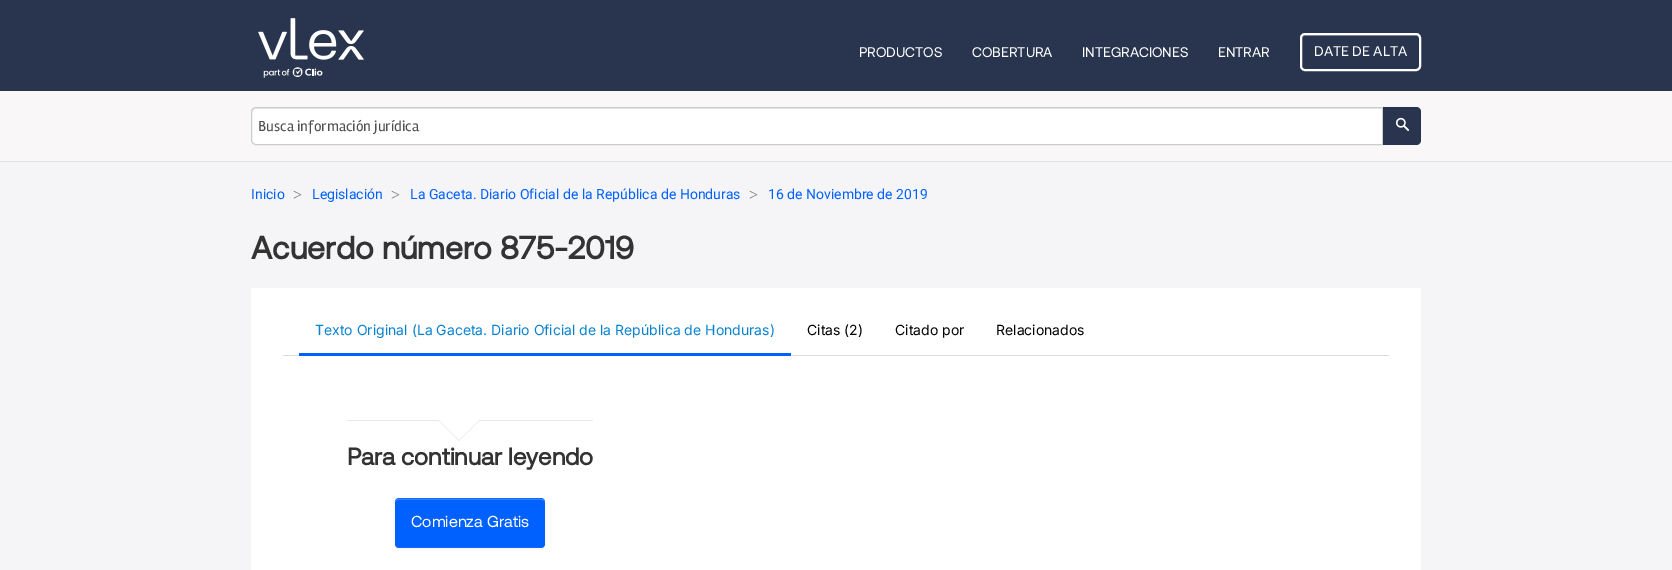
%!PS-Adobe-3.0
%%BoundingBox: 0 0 1672 570
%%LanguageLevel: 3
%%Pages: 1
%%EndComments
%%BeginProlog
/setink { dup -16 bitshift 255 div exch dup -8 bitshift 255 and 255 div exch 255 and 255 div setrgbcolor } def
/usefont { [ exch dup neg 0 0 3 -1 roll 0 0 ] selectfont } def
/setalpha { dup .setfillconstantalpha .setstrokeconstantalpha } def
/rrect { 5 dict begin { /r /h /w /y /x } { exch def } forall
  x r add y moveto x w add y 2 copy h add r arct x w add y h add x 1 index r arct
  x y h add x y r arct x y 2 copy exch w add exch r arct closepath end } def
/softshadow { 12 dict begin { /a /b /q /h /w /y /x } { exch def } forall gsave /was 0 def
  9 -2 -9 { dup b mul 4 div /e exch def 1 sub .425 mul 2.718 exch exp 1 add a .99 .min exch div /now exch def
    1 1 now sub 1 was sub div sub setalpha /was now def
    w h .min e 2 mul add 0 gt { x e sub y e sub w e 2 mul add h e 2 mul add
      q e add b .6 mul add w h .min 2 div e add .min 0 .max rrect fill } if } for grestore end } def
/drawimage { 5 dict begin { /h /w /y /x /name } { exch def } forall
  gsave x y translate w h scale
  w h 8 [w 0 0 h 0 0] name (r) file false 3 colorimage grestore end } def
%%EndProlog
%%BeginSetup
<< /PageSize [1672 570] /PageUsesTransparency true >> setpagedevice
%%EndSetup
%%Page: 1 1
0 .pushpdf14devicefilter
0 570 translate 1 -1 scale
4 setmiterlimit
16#F5F5F7 setink
0 0 1672 570 rectfill
16#29354E setink
0 0 1672 91 rectfill
(img1.raw) 258 18 106 60 drawimage
/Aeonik-Regular 14 usefont
16#FFFFFF setink
[
    [(PRODUCTOS) 859 57]
    [(COBERTURA) 972 57]
    [(INTEGRACIONES) 1082 57]
    [(ENTRAR) 1218 57]
] { aload pop moveto show } forall
16#545D71 setink
1305 36 moveto 1416 36 lineto 1418 36 1419 37 1419 39 curveto 1419 37 1418 35 1416 35 curveto 1324 35 lineto 1322 35 1302 30 1302 39 curveto 1302 37 1303 36 1305 36 curveto closepath fill
16#FFFFFF setink
2 setlinewidth
1301 34 119 36 4 rrect stroke
1314 56 moveto (DATE DE ALTA) show
16#F9F7F7 setink
0 91 1672 70 rectfill
16#E1E1E1 setink
0 161 1672 1 rectfill
16#FFFFFF setink
256 107 moveto 1383 107 lineto 1383 145 lineto 256 145 lineto 253 145 251 143 251 140 curveto 251 112 lineto 251 109 253 107 256 107 curveto closepath fill
16#ECECEC setink
256 109 moveto 1382 109 lineto 1382 108 lineto 256 108 lineto 253 108 252 110 252 113 curveto 252 111 254 109 256 109 curveto closepath fill
16#CCCCCC setink
1 setlinewidth
256 107.5 moveto 1382.5 107.5 lineto 1382.5 144.5 lineto 256 144.5 lineto 253.5 144.5 251.5 142.5 251.5 140 curveto 251.5 112 lineto 251.5 109.5 253.5 107.5 256 107.5 curveto closepath stroke
/Rambla-Regular 15 usefont
16#505050 setink
258 131 moveto (Busca información jurídica) show
16#29354E setink
1383 107 moveto 1416 107 lineto 1419 107 1421 109 1421 112 curveto 1421 140 lineto 1421 143 1419 145 1416 145 curveto 1383 145 lineto closepath fill
(img2.raw) 1395 117 14 14 drawimage
/Roboto-Regular 14 usefont
16#0161FF setink
251 199 moveto (Inicio) show
/LiberationSerif-Regular 16 usefont
16#71717A setink
293 200 moveto (>) show
/Roboto-Regular 14 usefont
16#0161FF setink
312 199 moveto (Legislación) show
/LiberationSerif-Regular 16 usefont
16#71717A setink
391 200 moveto (>) show
/Roboto-Regular 14 usefont
16#0161FF setink
410 199 moveto (La Gaceta. Diario Oficial de la República de Honduras) show
/LiberationSerif-Regular 16 usefont
16#71717A setink
749 200 moveto (>) show
/Roboto-Regular 14 usefont
16#0161FF setink
768 199 moveto (16 de Noviembre de 2019) show
/Aeonik-Bold 32 usefont
16#333333 setink
251 259 moveto (Acuerdo número 875-2019) show
16#FFFFFF setink
251 288 1170 282 rectfill
16#DDDDDD setink
283 355 1106 1 rectfill
/Inter-Regular 14 usefont
16#0882CF setink
315 335 moveto (Texto Original \(La Gaceta. Diario Oficial de la República de Honduras\)) show
16#0161FF setink
299 353 492 3 rectfill
16#000000 setink
[
    [(Citas \(2\)) 807 335]
    [(Citado por) 895 335]
    [(Relacionados) 996 335]
] { aload pop moveto show } forall
16#E7E7E7 setink
347 420 246 1 rectfill
438 420 moveto 480 420 lineto 459 441 lineto closepath fill
16#FFFFFF setink
439 420 moveto 479 420 lineto 459 440 lineto closepath fill
/Aeonik-Bold 24 usefont
16#333333 setink
347 465 moveto (Para continuar leyendo) show
16#000000 setink
395 499 150 50 4 1 0.05 softshadow
16#0161FF setink
395 498 150 50 4 rrect fill
16#3481FF setink
399 500 moveto 541 500 lineto 543 500 545 501 545 503 curveto 545 501 544 499 541 499 curveto 397 499 lineto 396 500 395 501 395 503 curveto 395 501 397 500 399 500 curveto closepath fill
0.1 setalpha
16#A8CBFF setink
399 498 moveto 397 498 395 500 395 502 curveto 395 500 397 499 399 499 curveto 541 499 lineto 543 499 545 500 545 502 curveto 545 500 543 498 541 498 curveto closepath fill
16#A4BDDB setink
541 548 moveto 543 548 545 546 545 544 curveto 545 546 543 547 541 547 curveto 399 547 lineto 397 547 395 546 395 544 curveto 395 546 397 548 399 548 curveto closepath fill
/Aeonik-Regular 16 usefont
1 setalpha
16#FFFFFF setink
411 527 moveto (Comienza Gratis) show
.poppdf14devicefilter showpage
%%EOF
